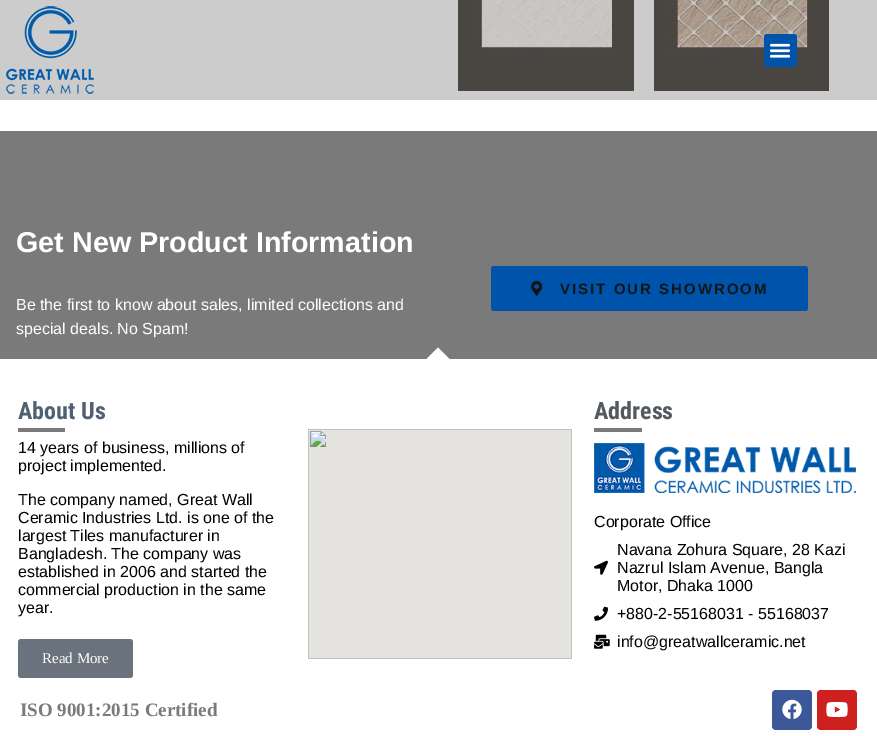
%!PS-Adobe-3.0
%%BoundingBox: 0 0 877 736
%%LanguageLevel: 3
%%Pages: 1
%%EndComments
%%BeginProlog
/setink { dup -16 bitshift 255 div exch dup -8 bitshift 255 and 255 div exch 255 and 255 div setrgbcolor } def
/usefont { [ exch dup neg 0 0 3 -1 roll 0 0 ] selectfont } def
/rrect { 5 dict begin { /r /h /w /y /x } { exch def } forall
  x r add y moveto x w add y 2 copy h add r arct x w add y h add x 1 index r arct
  x y h add x y r arct x y 2 copy exch w add exch r arct closepath end } def
/drawimage { 5 dict begin { /h /w /y /x /name } { exch def } forall
  gsave x y translate w h scale
  w h 8 [w 0 0 h 0 0] name (r) file false 3 colorimage grestore end } def
%%EndProlog
%%BeginSetup
<< /PageSize [877 736] >> setpagedevice
%%EndSetup
%%Page: 1 1
0 736 translate 1 -1 scale
4 setmiterlimit
16#FFFFFF setink
0 0 877 736 rectfill
16#CCCCCC setink
0 0 877 100 rectfill
(img1.raw) 6 6 88 88 drawimage
(img4.raw) 654 0 175 91 drawimage
16#0053AA setink
764 34 33 33 3 rrect fill
(img2.raw) 769 43 22 15 drawimage
(img3.raw) 458 0 176 91 drawimage
16#7A7A7A setink
0 131 877 228 rectfill
/LiberationSans-Bold 28.75 usefont
16#FFFFFF setink
16 252 moveto (Get New Product Information) show
/LiberationSans-Regular 16 usefont
16 310 moveto (Be the first to know about sales, limited collections and) show
16 334 moveto (special deals. No Spam!) show
16#0053AA setink
491 266 317 45 3 rrect fill
(img5.raw) 531 280 12 16 drawimage
/LiberationSans-Bold 15 usefont
16#0F1616 setink
560 294 moveto 2 0 (VISIT OUR SHOWROOM) ashow
16#FFFFFF setink
438 347.5 moveto 450.5 360 lineto 425.5 360 lineto closepath fill
/RobotoCondensed-Bold 24 usefont
16#506073 setink
18 419 moveto (About Us) show
16#7A7A7A setink
18 428 47 4 rectfill
/LiberationSans-Regular 16 usefont
16#000000 setink
[
    [(14 years of business, millions of) 18 453]
    [(project implemented.) 18 471]
    [(The company named, Great Wall) 18 505]
    [(Ceramic Industries Ltd. is one of the) 18 523]
    [(largest Tiles manufacturer in) 18 541]
    [(Bangladesh. The company was) 18 559]
    [(established in 2006 and started the) 18 577]
    [(commercial production in the same) 18 595]
    [(year.) 18 613]
] { aload pop moveto show } forall
16#69727D setink
18 639 115 39 3 rrect fill
/LiberationSerif-Regular 15 usefont
16#FFFFFF setink
42 663 moveto (Read More) show
(img6.raw) 308 429 264 230 drawimage
/RobotoCondensed-Bold 24 usefont
16#54595F setink
594 419 moveto (Address) show
16#7A7A7A setink
594 428 48 4 rectfill
(img7.raw) 594 443 262 50 drawimage
/LiberationSans-Regular 16 usefont
16#000000 setink
594 527 moveto (Corporate Office) show
(img8.raw) 594 560 14 15 drawimage
[
    [(Navana Zohura Square, 28 Kazi) 617 555]
    [(Nazrul Islam Avenue, Bangla) 617 573]
    [(Motor, Dhaka 1000) 617 591]
] { aload pop moveto show } forall
(img9.raw) 594 606 14 15 drawimage
617 619 moveto (+880-2-55168031 - 55168037) show
(img10.raw) 594 634 16 15 drawimage
617 647 moveto (info@greatwallceramic.net) show
/LiberationSerif-Bold 19 usefont
16#7A7A7A setink
20 716 moveto (ISO 9001:2015 Certified) show
16#3B5998 setink
772 690 40 40 4 rrect fill
(img11.raw) 782 699 20 20 drawimage
16#CD201F setink
817 690 40 40 4 rrect fill
(img12.raw) 826 702 22 15 drawimage
showpage
%%EOF
